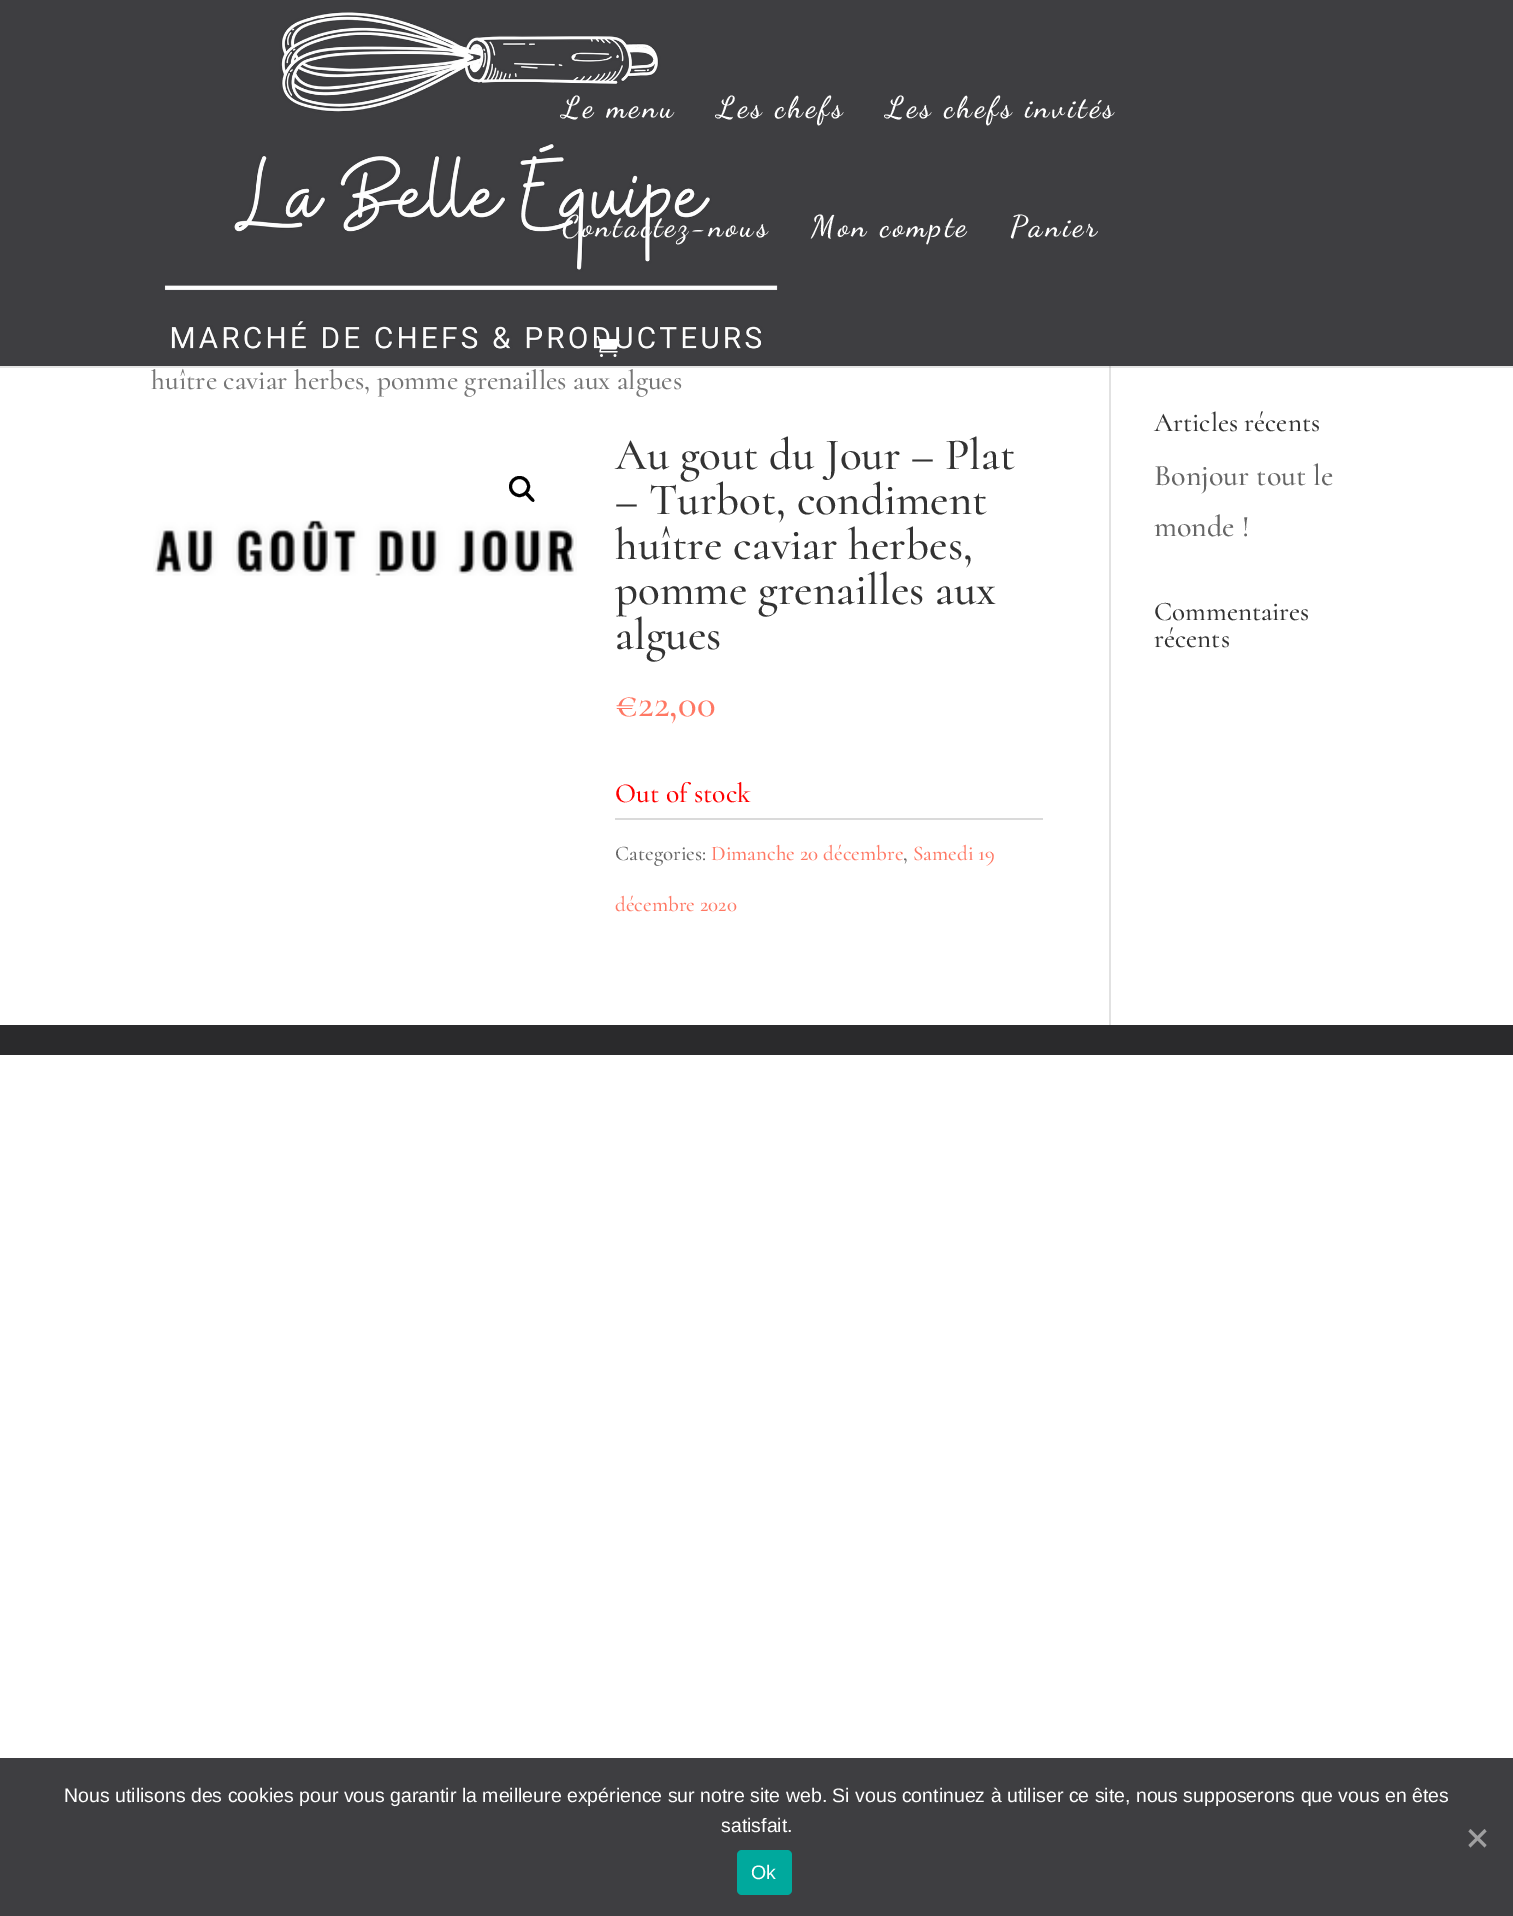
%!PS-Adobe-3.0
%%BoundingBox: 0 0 1513 1916
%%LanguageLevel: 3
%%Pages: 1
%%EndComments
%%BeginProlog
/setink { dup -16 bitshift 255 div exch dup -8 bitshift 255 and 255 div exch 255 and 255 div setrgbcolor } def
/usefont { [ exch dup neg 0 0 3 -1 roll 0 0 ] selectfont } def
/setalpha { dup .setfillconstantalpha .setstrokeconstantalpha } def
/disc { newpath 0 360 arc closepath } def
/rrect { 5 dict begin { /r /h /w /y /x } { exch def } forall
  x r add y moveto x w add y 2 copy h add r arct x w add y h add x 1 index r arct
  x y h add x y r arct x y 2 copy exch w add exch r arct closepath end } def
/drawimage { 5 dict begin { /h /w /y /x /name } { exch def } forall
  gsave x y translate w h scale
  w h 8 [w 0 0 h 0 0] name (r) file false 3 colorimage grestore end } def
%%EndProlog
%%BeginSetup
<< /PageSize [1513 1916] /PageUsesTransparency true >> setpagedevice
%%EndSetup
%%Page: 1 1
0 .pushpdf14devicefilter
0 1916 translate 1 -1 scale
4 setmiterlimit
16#FFFFFF setink
0 0 1513 1916 rectfill
16#E2E2E2 setink
1109 366 2 659 rectfill
0.1 setalpha
16#000000 setink
0 366 moveto 0 368 lineto 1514 368 lineto 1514 2 lineto 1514 366 lineto closepath fill
1 setalpha
16#3E3E41 setink
0 0 1513 366 rectfill
(img1.raw) 164 12 614 337 drawimage
/DancingScript-SemiBold 30 usefont
16#FFFFFF setink
562 117 moveto 3 0 (Le menu) ashow
717 117 moveto 3 0 (Les chefs) ashow
886 117 moveto 3 0 (Les chefs invités) ashow
562 236 moveto 3 0 (Contactez-nous) ashow
811 236 moveto 3 0 (Mon compte) ashow
1010 236 moveto 3 0 (Panier) ashow
(img2.raw) 596 336 24 21 drawimage
/Cormorant-Medium 27.6 usefont
16#767676 setink
151 389 moveto (huître caviar herbes, pomme grenailles aux algues) show
16#000000 setink
3 setlinewidth
519.5 486.5 9 disc stroke
525.5 493 moveto 527 491 530 495 531 496 curveto 531.5 497 535.5 499.5 534 501.5 curveto 532.5 503 529.5 499 528.5 498 curveto 528 497 524 494.5 525.5 493 curveto closepath fill
(img3.raw) 153 520 424 56 drawimage
/Cormorant-Medium 45 usefont
16#333333 setink
[
    [(Au gout du Jour – Plat) 615 469]
    [(– Turbot, condiment) 615 514]
    [(huître caviar herbes,) 615 559]
    [(pomme grenailles aux) 615 604]
    [(algues) 615 649]
] { aload pop moveto show } forall
/Cormorant-Medium 39 usefont
16#FF7864 setink
615 716 moveto (€22,00) show
/Cormorant-Medium 27.6 usefont
16#FF0000 setink
615 802 moveto (Out of stock) show
16#DADADA setink
615 818 428 2 rectfill
/Cormorant-Medium 21 usefont
16#666666 setink
615 860 moveto (Categories:) show
16#FF7864 setink
711 860 moveto (Dimanche 20 décembre) show
16#666666 setink
903 860 moveto (,) show
16#FF7864 setink
913 860 moveto (Samedi 19) show
615 911 moveto (décembre 2020) show
/Cormorant-Medium 27 usefont
16#333333 setink
1154 431 moveto (Articles récents) show
/Cormorant-Medium 30 usefont
16#666666 setink
1154 485 moveto (Bonjour tout le) show
1154 536 moveto (monde !) show
/Cormorant-Medium 27 usefont
16#333333 setink
1154 620 moveto (Commentaires) show
1154 647 moveto (récents) show
16#2A2A2C setink
0 1025 1513 30 rectfill
16#3E3E41 setink
0 1758 1513 158 rectfill
/LiberationSans-Regular 19.5 usefont
16#FFFFFF setink
64 1802 moveto (Nous utilisons des cookies pour vous garantir la meilleure expérience sur notre site web. Si vous continuez à utiliser ce site, nous supposerons que vous en êtes) show
721 1832 moveto (satisfait.) show
16#9F9FA0 setink
1484.5 1829 moveto 1486.5 1831.5 lineto 1470.5 1847.5 lineto 1468.5 1845 lineto closepath fill
1468.5 1831.5 moveto 1470.5 1829 lineto 1486.5 1845 lineto 1484.5 1847.5 lineto closepath fill
16#00A99D setink
737 1850 55 45 5 rrect fill
16#FFFFFF setink
751 1879 moveto (Ok) show
.poppdf14devicefilter showpage
%%EOF
